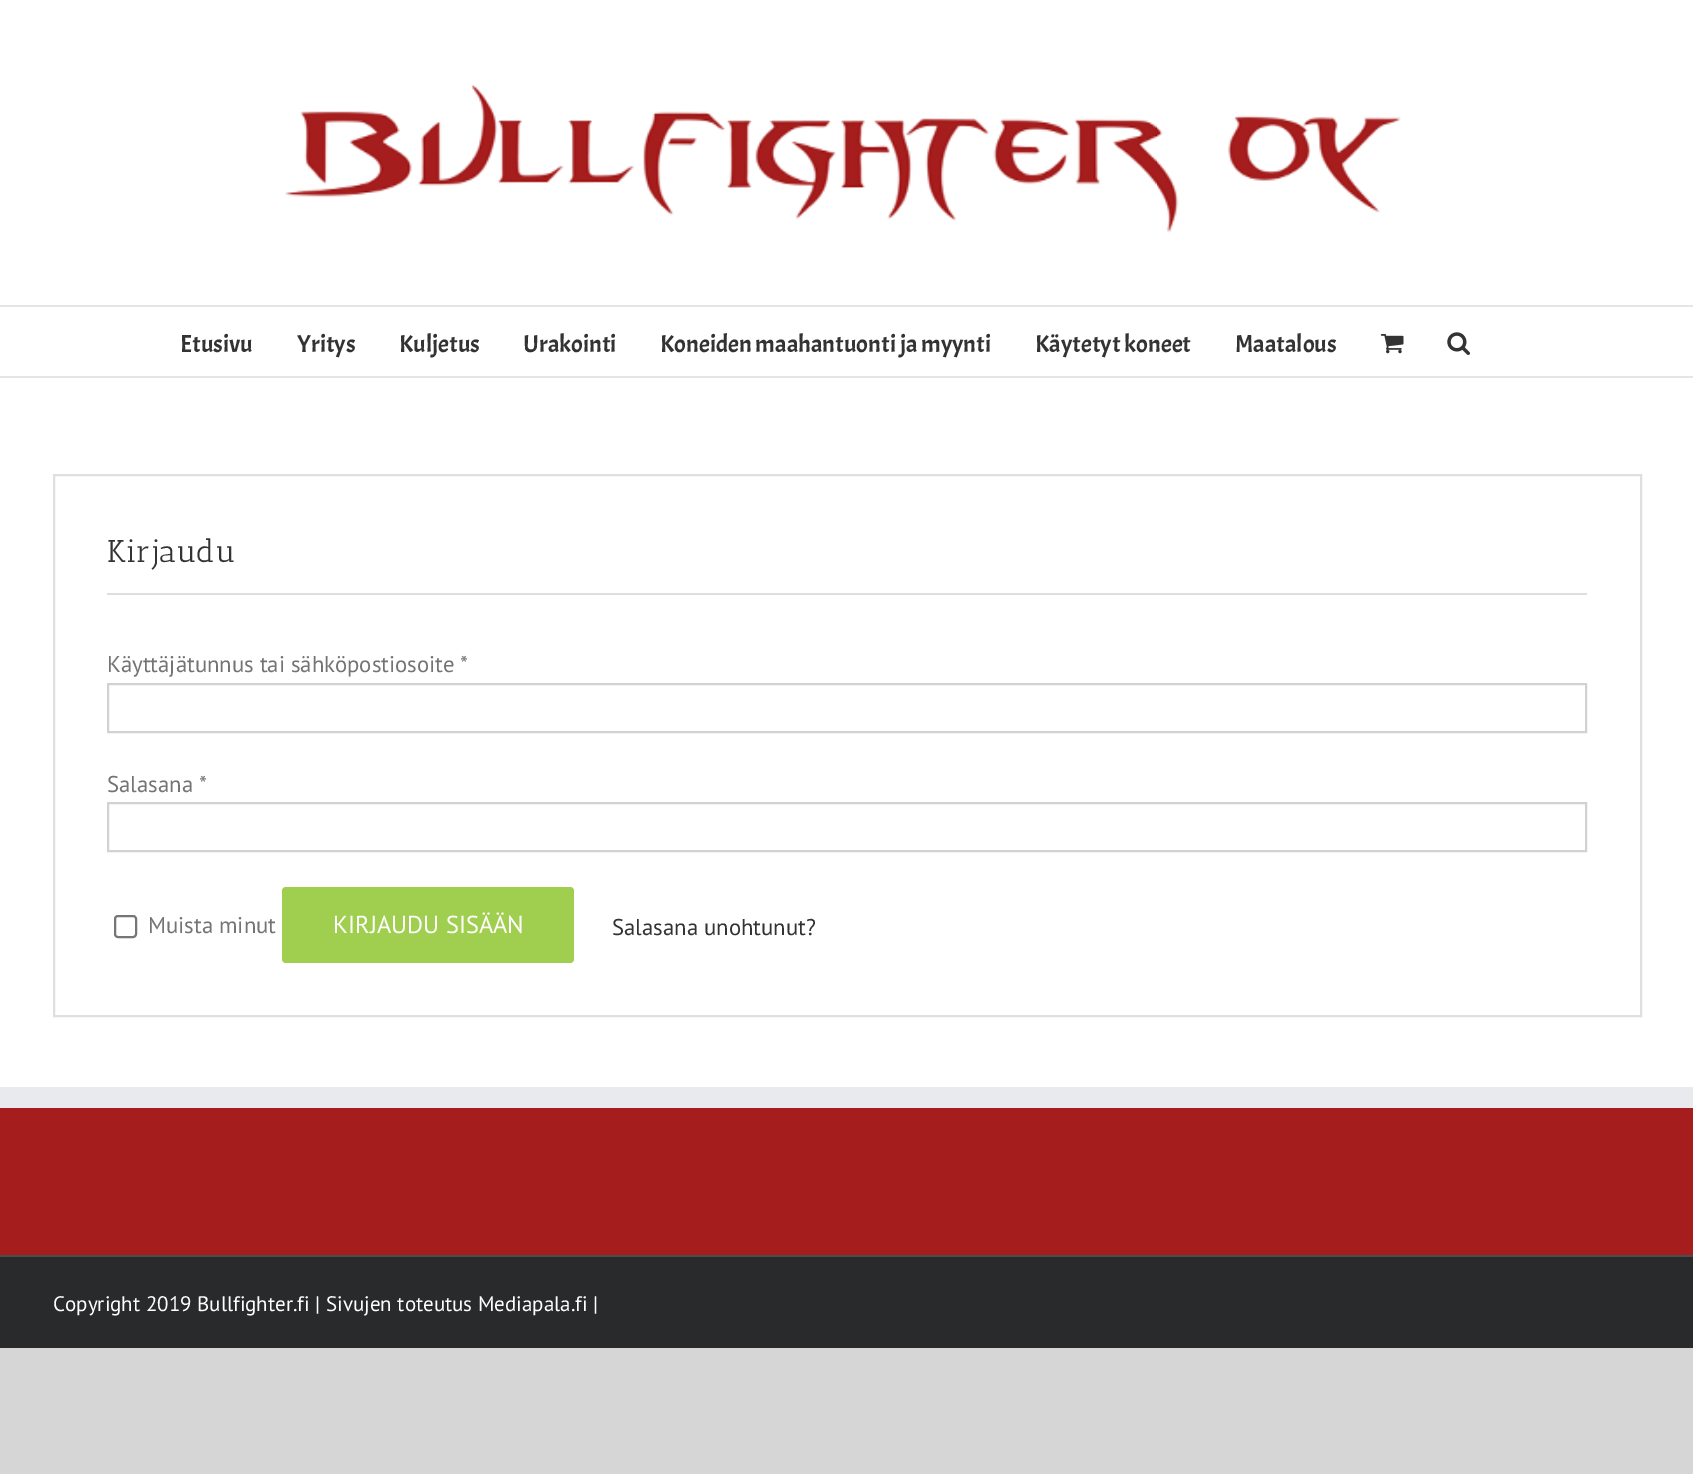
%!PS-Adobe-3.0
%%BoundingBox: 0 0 1693 1474
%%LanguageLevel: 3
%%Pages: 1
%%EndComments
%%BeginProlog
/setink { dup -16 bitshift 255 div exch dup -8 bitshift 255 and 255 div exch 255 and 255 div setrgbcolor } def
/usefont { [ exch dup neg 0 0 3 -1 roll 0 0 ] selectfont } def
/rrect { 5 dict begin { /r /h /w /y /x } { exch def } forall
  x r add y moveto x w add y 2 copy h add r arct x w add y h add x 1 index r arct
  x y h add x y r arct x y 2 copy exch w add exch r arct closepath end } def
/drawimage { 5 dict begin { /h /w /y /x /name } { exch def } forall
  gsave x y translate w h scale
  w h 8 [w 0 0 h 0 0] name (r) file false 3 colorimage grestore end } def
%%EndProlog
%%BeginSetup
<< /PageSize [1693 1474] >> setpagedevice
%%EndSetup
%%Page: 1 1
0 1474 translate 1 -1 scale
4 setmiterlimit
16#D7D6D6 setink
0 0 1693 1474 rectfill
16#FFFFFF setink
0 0 1693 1087 rectfill
16#E5E5E5 setink
0 305 1693 2 rectfill
(img1.raw) 285 85 1116 148 drawimage
0 376 1693 2 rectfill
/Acme-Regular 24.5 usefont
16#333333 setink
[
    [(Etusivu) 180 352]
    [(Yritys) 297 352]
    [(Kuljetus) 399 352]
    [(Urakointi) 523 352]
    [(Koneiden maahantuonti ja myynti) 660 352]
    [(Käytetyt koneet) 1035 352]
    [(Maatalous) 1235 352]
] { aload pop moveto show } forall
(img2.raw) 1380 334 24 20 drawimage
(img3.raw) 1447 332 23 23 drawimage
16#E0DEDE setink
2 setlinewidth
54 475 1587 541 rectstroke
107 593 1480 2 rectfill
/AnticSlab-Regular 31.5 usefont
16#333333 setink
107 562 moveto (Kirjaudu) show
/PTSans-Regular 22.75 usefont
16#747474 setink
107 672 moveto (Käyttäjätunnus tai sähköpostiosoite *) show
16#D2D2D2 setink
108 684 1478 48 rectstroke
16#747474 setink
107 792 moveto (Salasana *) show
16#D2D2D2 setink
108 803 1478 48 rectstroke
16#767676 setink
115 916 21 21 3 rrect stroke
16#747474 setink
148 933 moveto (Muista minut) show
16#A0CE4E setink
282 887 292 76 4 rrect fill
/PTSans-Regular 24.5 usefont
16#FFFFFF setink
333 933 moveto (KIRJAUDU SISÄÄN) show
/PTSans-Regular 22.75 usefont
16#333333 setink
612 935 moveto (Salasana unohtunut?) show
[
    [0 1108 1693 147 16#A51D1D]
    [0 1087 1693 21 16#E9EAEE]
    [0 1257 1693 91 16#282A2B]
    [0 1255 1693 2 16#4B4C4D]
] { aload pop setink rectfill } forall
/PTSans-Regular 21 usefont
16#FFFFFF setink
53 1311 moveto (Copyright 2019 Bullfighter.fi | Sivujen toteutus Mediapala.fi |) show
showpage
%%EOF
